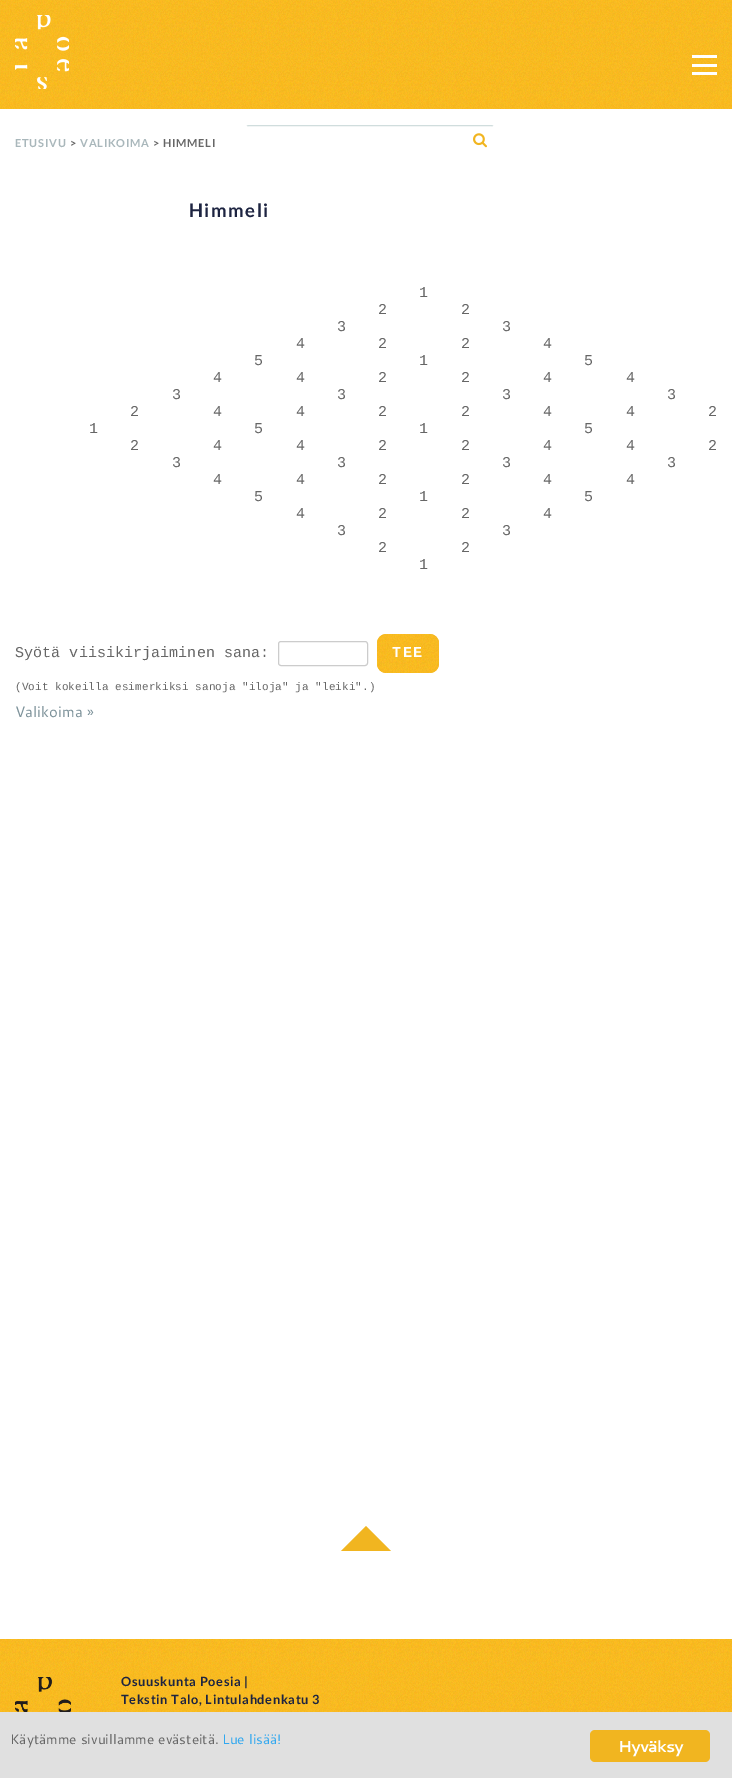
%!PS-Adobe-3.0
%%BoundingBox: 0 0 732 1778
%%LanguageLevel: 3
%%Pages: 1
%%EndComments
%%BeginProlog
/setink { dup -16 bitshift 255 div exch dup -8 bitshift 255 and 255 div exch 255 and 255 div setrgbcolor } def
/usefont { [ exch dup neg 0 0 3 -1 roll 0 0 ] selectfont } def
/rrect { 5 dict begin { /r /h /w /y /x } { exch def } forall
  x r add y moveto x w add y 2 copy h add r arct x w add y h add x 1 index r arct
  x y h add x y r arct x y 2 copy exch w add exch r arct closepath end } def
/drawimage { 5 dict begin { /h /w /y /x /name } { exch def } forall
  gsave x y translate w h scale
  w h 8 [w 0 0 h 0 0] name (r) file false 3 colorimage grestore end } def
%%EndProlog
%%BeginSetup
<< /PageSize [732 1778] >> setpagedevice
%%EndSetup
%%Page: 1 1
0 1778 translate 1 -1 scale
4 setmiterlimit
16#FFFFFF setink
0 0 732 1778 rectfill
(img1.raw) 0 0 732 109 drawimage
(img2.raw) 15 15 54 74 drawimage
[
    [692 55 25 3 16#FFFFFF]
    [692 72 25 3 16#FFFFFF]
    [692 64 25 3 16#FFFFFF]
] { aload pop setink rectfill } forall
/Lato-Bold 11 usefont
16#A9B7BB setink
15 147 moveto 0.75 0 (ETUSIVU) ashow
16#666666 setink
70 147 moveto 0.75 0 (>) ashow
16#A9B7BB setink
80 147 moveto 0.75 0 (VALIKOIMA) ashow
16#666666 setink
153 147 moveto 0.75 0 (> HIMMELI) ashow
16#D0DDDD setink
247 126 moveto 249 125.5 lineto 491 125.5 lineto 493 126 lineto stroke
(img3.raw) 473 133 14 15 drawimage
16#FFFFFF setink
493 126 moveto 494.5 128 493.5 141 493.5 144 curveto 493.5 145.5 495.5 154.5 491 154.5 curveto 249 154.5 lineto 244.5 154.5 246.5 145.5 246.5 144 curveto 246.5 141 245.5 128 247 126 curveto stroke
/Lato-Bold 18.5 usefont
16#1D2441 setink
189 217 moveto 1.5 0 (Himmeli) ashow
/LiberationMono-Regular 15 usefont
16#666666 setink
419 297 moveto 0.08 0 (1) ashow
378 314 moveto 0.08 0 (2) ashow
461 314 moveto 0.08 0 (2) ashow
337 331 moveto 0.08 0 (3) ashow
502 331 moveto 0.08 0 (3) ashow
296 348 moveto 0.08 0 (4) ashow
378 348 moveto 0.08 0 (2) ashow
461 348 moveto 0.08 0 (2) ashow
543 348 moveto 0.08 0 (4) ashow
254 365 moveto 0.08 0 (5) ashow
419 365 moveto 0.08 0 (1) ashow
584 365 moveto 0.08 0 (5) ashow
213 382 moveto 0.08 0 (4) ashow
296 382 moveto 0.08 0 (4) ashow
378 382 moveto 0.08 0 (2) ashow
461 382 moveto 0.08 0 (2) ashow
543 382 moveto 0.08 0 (4) ashow
626 382 moveto 0.08 0 (4) ashow
172 399 moveto 0.08 0 (3) ashow
337 399 moveto 0.08 0 (3) ashow
502 399 moveto 0.08 0 (3) ashow
667 399 moveto 0.08 0 (3) ashow
130 416 moveto 0.08 0 (2) ashow
213 416 moveto 0.08 0 (4) ashow
296 416 moveto 0.08 0 (4) ashow
378 416 moveto 0.08 0 (2) ashow
461 416 moveto 0.08 0 (2) ashow
543 416 moveto 0.08 0 (4) ashow
626 416 moveto 0.08 0 (4) ashow
708 416 moveto 0.08 0 (2) ashow
89 433 moveto 0.08 0 (1) ashow
254 433 moveto 0.08 0 (5) ashow
419 433 moveto 0.08 0 (1) ashow
584 433 moveto 0.08 0 (5) ashow
130 450 moveto 0.08 0 (2) ashow
213 450 moveto 0.08 0 (4) ashow
296 450 moveto 0.08 0 (4) ashow
378 450 moveto 0.08 0 (2) ashow
461 450 moveto 0.08 0 (2) ashow
543 450 moveto 0.08 0 (4) ashow
626 450 moveto 0.08 0 (4) ashow
708 450 moveto 0.08 0 (2) ashow
172 467 moveto 0.08 0 (3) ashow
337 467 moveto 0.08 0 (3) ashow
502 467 moveto 0.08 0 (3) ashow
667 467 moveto 0.08 0 (3) ashow
213 484 moveto 0.08 0 (4) ashow
296 484 moveto 0.08 0 (4) ashow
378 484 moveto 0.08 0 (2) ashow
461 484 moveto 0.08 0 (2) ashow
543 484 moveto 0.08 0 (4) ashow
626 484 moveto 0.08 0 (4) ashow
254 501 moveto 0.08 0 (5) ashow
419 501 moveto 0.08 0 (1) ashow
584 501 moveto 0.08 0 (5) ashow
296 518 moveto 0.08 0 (4) ashow
378 518 moveto 0.08 0 (2) ashow
461 518 moveto 0.08 0 (2) ashow
543 518 moveto 0.08 0 (4) ashow
337 535 moveto 0.08 0 (3) ashow
502 535 moveto 0.08 0 (3) ashow
378 552 moveto 0.08 0 (2) ashow
461 552 moveto 0.08 0 (2) ashow
419 569 moveto 0.08 0 (1) ashow
15 657 moveto 0.08 0 (Syötä viisikirjaiminen sana:) ashow
16#CCCCCC setink
278.5 641.5 89 24 2.5 rrect stroke
16#F1B520 setink
377 634 62 39 9 rrect fill
(img4.raw) 377 634 62 39 drawimage
/LiberationMono-Bold 15 usefont
16#FFFFFF setink
392 657 moveto 1.5 0 (TEE) ashow
/LiberationMono-Regular 11 usefont
16#666666 setink
15 690 moveto 0.08 0 (\(Voit kokeilla esimerkiksi sanoja "iloja" ja "leiki".\)) ashow
/Cantarell-Regular 15 usefont
16#7D929A setink
15 717 moveto 0.08 0 (Valikoima ») ashow
(img5.raw) 0 1639 732 73 drawimage
16#F1B520 setink
391 1551 moveto 341 1551 lineto 366 1526 lineto closepath fill
(img6.raw) 15 1677 56 35 drawimage
/Lato-Bold 12.75 usefont
16#1D2441 setink
121 1686 moveto 0.65 0 (Osuuskunta Poesia |) ashow
121 1704 moveto 0.65 0 (Tekstin Talo, Lintulahdenkatu 3) ashow
16#E0E0E0 setink
0 1712 732 66 rectfill
/Cantarell-Regular 13.6 usefont
16#666666 setink
10 1744 moveto 0.08 0 (Käytämme sivuillamme evästeitä.) ashow
16#31A8F0 setink
222 1744 moveto 0.08 0 (Lue lisää!) ashow
16#F1B520 setink
590 1730 120 32 5 rrect fill
/Cantarell-Bold 16 usefont
16#FFFFFF setink
618 1752 moveto -0.75 0 (Hyväksy) ashow
showpage
%%EOF
